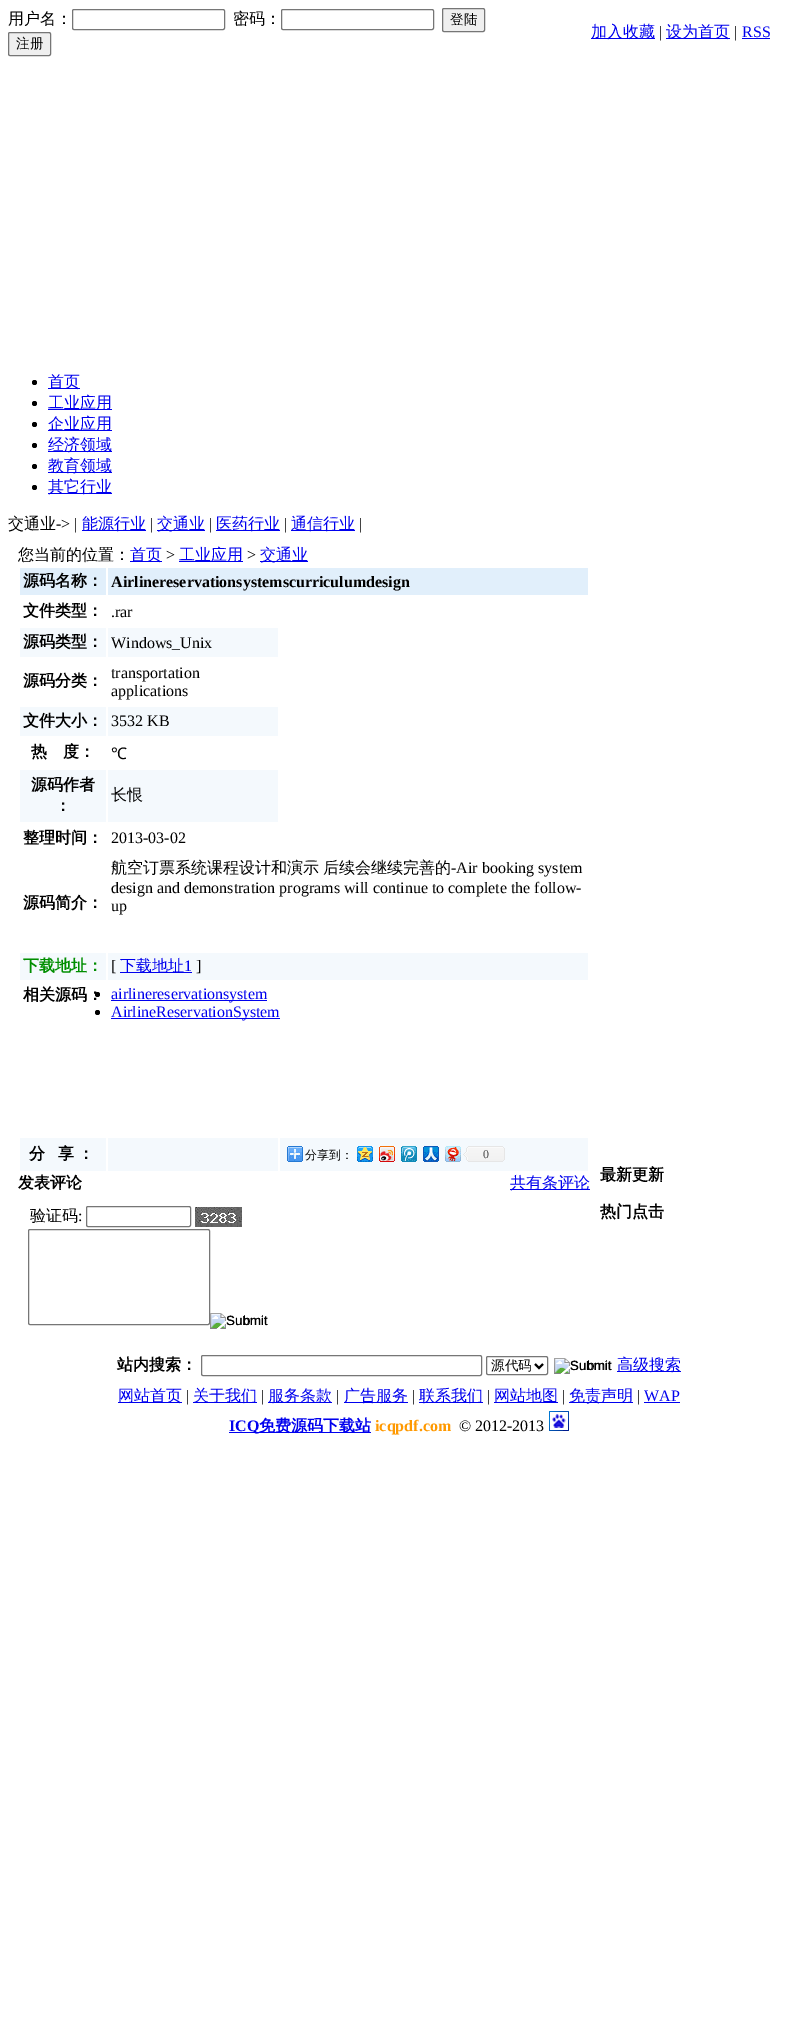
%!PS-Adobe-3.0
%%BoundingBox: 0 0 798 2017
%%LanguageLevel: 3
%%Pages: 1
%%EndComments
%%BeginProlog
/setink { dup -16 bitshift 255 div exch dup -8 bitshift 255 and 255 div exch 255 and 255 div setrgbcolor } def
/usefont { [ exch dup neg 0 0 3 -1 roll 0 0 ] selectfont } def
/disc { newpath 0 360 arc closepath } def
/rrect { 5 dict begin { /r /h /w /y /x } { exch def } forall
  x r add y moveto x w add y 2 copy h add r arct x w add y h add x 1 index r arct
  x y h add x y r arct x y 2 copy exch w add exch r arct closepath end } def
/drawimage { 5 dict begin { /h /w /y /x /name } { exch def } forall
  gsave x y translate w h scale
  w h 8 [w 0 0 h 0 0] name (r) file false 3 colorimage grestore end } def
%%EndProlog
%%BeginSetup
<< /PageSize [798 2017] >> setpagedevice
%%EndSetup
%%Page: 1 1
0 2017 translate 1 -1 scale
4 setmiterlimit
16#FFFFFF setink
0 0 798 2017 rectfill
/WenQuanYiZenHei-Medium 16 usefont
16#000000 setink
8 24 moveto (用户名：) show
16#767676 setink
72.5 9.5 152 20 1.5 rrect stroke
16#000000 setink
233 24 moveto (密码：) show
16#767676 setink
281.5 9.5 152 20 1.5 rrect stroke
16#EFEFEF setink
442.5 8.5 42 23 1.5 rrect gsave fill grestore
16#767676 setink
stroke
/WenQuanYiZenHei-Medium 13.5 usefont
16#000000 setink
450 24 moveto (登陆) show
16#EFEFEF setink
8.5 32.5 42 23 1.5 rrect gsave fill grestore
16#767676 setink
stroke
16#000000 setink
16 48 moveto (注册) show
16#0000EE setink
591 38 64 1 rectfill
/WenQuanYiZenHei-Medium 16 usefont
591 37 moveto (加入收藏) show
/LiberationSerif-Regular 16 usefont
16#000000 setink
659 37 moveto (|) show
16#0000EE setink
666 38 64 1 rectfill
/WenQuanYiZenHei-Medium 16 usefont
666 37 moveto (设为首页) show
/LiberationSerif-Regular 16 usefont
16#000000 setink
734 37 moveto (|) show
16#0000EE setink
742 37 moveto (RSS) show
742 38 28 1 rectfill
16#000000 setink
34.5 382.5 2.5 disc fill
16#0000EE setink
48 388 32 1 rectfill
/WenQuanYiZenHei-Medium 16 usefont
48 387 moveto (首页) show
16#000000 setink
34.5 403.5 2.5 disc fill
16#0000EE setink
48 409 64 1 rectfill
48 408 moveto (工业应用) show
16#000000 setink
34.5 424.5 2.5 disc fill
16#0000EE setink
48 430 64 1 rectfill
48 429 moveto (企业应用) show
16#000000 setink
34.5 445.5 2.5 disc fill
16#0000EE setink
48 451 64 1 rectfill
48 450 moveto (经济领域) show
16#000000 setink
34.5 466.5 2.5 disc fill
16#0000EE setink
48 472 64 1 rectfill
48 471 moveto (教育领域) show
16#000000 setink
34.5 487.5 2.5 disc fill
16#0000EE setink
48 493 64 1 rectfill
48 492 moveto (其它行业) show
16#000000 setink
8 529 moveto (交通业) show
/LiberationSerif-Regular 16 usefont
56 529 moveto (-> |) show
16#0000EE setink
82 530 64 1 rectfill
/WenQuanYiZenHei-Medium 16 usefont
82 529 moveto (能源行业) show
/LiberationSerif-Regular 16 usefont
16#000000 setink
150 529 moveto (|) show
16#0000EE setink
157 530 48 1 rectfill
/WenQuanYiZenHei-Medium 16 usefont
157 529 moveto (交通业) show
/LiberationSerif-Regular 16 usefont
16#000000 setink
209 529 moveto (|) show
16#0000EE setink
216 530 64 1 rectfill
/WenQuanYiZenHei-Medium 16 usefont
216 529 moveto (医药行业) show
/LiberationSerif-Regular 16 usefont
16#000000 setink
284 529 moveto (|) show
16#0000EE setink
291 530 64 1 rectfill
/WenQuanYiZenHei-Medium 16 usefont
291 529 moveto (通信行业) show
/LiberationSerif-Regular 16 usefont
16#000000 setink
359 529 moveto (|) show
/WenQuanYiZenHei-Medium 16 usefont
18 560 moveto (您当前的位置：) show
16#0000EE setink
130 561 32 1 rectfill
130 560 moveto (首页) show
/LiberationSerif-Regular 16 usefont
16#000000 setink
166 560 moveto (>) show
16#0000EE setink
179 561 64 1 rectfill
/WenQuanYiZenHei-Medium 16 usefont
179 560 moveto (工业应用) show
/LiberationSerif-Regular 16 usefont
16#000000 setink
247 560 moveto (>) show
16#0000EE setink
260 561 48 1 rectfill
/WenQuanYiZenHei-Medium 16 usefont
260 560 moveto (交通业) show
16#E1EFFB setink
20 568 86 27 rectfill
/WenQuanYiZenHei-Bold 16 usefont
16#000000 setink
23 586 moveto (源码名称：) show
16#E1EFFB setink
108 568 480 27 rectfill
/LiberationSerif-Bold 16 usefont
16#000000 setink
111 587 moveto (Airlinereservationsystemscurriculumdesign) show
/WenQuanYiZenHei-Bold 16 usefont
23 616 moveto (文件类型：) show
/LiberationSerif-Regular 16 usefont
111 617 moveto (.rar) show
16#F4F9FD setink
20 628 86 29 rectfill
/WenQuanYiZenHei-Bold 16 usefont
16#000000 setink
23 647 moveto (源码类型：) show
16#F4F9FD setink
108 628 170 29 rectfill
/LiberationSerif-Regular 16 usefont
16#000000 setink
111 648 moveto (Windows_Unix) show
/WenQuanYiZenHei-Bold 16 usefont
23 686 moveto (源码分类：) show
/LiberationSerif-Regular 16 usefont
111 678 moveto (transportation) show
111 696 moveto (applications) show
16#F4F9FD setink
20 707 86 29 rectfill
/WenQuanYiZenHei-Bold 16 usefont
16#000000 setink
23 726 moveto (文件大小：) show
16#F4F9FD setink
108 707 170 29 rectfill
/LiberationSerif-Regular 16 usefont
16#000000 setink
111 726 moveto (3532 KB) show
/WenQuanYiZenHei-Bold 16 usefont
31 757 moveto (热) show
63 757 moveto (度：) show
/NotoSans-Regular 16 usefont
111 759 moveto (℃) show
16#F4F9FD setink
20 770 86 52 rectfill
/WenQuanYiZenHei-Bold 16 usefont
16#000000 setink
31 790 moveto (源码作者) show
55 811 moveto (：) show
16#F4F9FD setink
108 770 170 52 rectfill
/WenQuanYiZenHei-Medium 16 usefont
16#000000 setink
111 800 moveto (长恨) show
/WenQuanYiZenHei-Bold 16 usefont
23 843 moveto (整理时间：) show
/LiberationSerif-Regular 16 usefont
111 843 moveto (2013-03-02) show
/WenQuanYiZenHei-Bold 16 usefont
23 908 moveto (源码简介：) show
/WenQuanYiZenHei-Medium 16 usefont
111 873 moveto (航空订票系统课程设计和演示) show
323 873 moveto (后续会继续完善的) show
/LiberationSerif-Regular 16 usefont
[
    [(-Air booking system) 451 873]
    [(design and demonstration programs will continue to complete the follow-) 111 893]
    [(up) 111 911]
] { aload pop moveto show } forall
16#F4F9FD setink
20 953 86 27 rectfill
/WenQuanYiZenHei-Bold 16 usefont
16#008E00 setink
23 971 moveto (下载地址：) show
16#F4F9FD setink
108 953 480 27 rectfill
/LiberationSerif-Regular 16 usefont
16#000000 setink
111 971 moveto ([) show
16#0000EE setink
120 972 72 1 rectfill
/WenQuanYiZenHei-Medium 16 usefont
120 971 moveto (下载地址) show
/LiberationSerif-Regular 16 usefont
184 971 moveto (1) show
16#000000 setink
196 971 moveto (]) show
/WenQuanYiZenHei-Bold 16 usefont
23 1000 moveto (相关源码：) show
97.5 994.5 2.5 disc fill
16#0000EE setink
111 1000 156 1 rectfill
/LiberationSerif-Regular 16 usefont
111 999 moveto (airlinereservationsystem) show
16#000000 setink
97.5 1012.5 2.5 disc fill
16#0000EE setink
111 1018 169 1 rectfill
111 1017 moveto (AirlineReservationSystem) show
16#F4F9FD setink
20 1138 86 33 rectfill
/WenQuanYiZenHei-Bold 16 usefont
16#000000 setink
29 1159 moveto (分) show
58 1159 moveto -1 0 32 (享 ：) widthshow
16#F4F9FD setink
108 1138 170 33 rectfill
280 1138 308 33 rectfill
(img1.raw) 287 1146 16 16 drawimage
/WenQuanYiZenHei-Medium 12 usefont
16#000000 setink
305 1159 moveto (分享到：) show
(img2.raw) 357 1146 16 16 drawimage
(img3.raw) 379 1146 16 16 drawimage
(img4.raw) 401 1146 16 16 drawimage
(img5.raw) 423 1146 16 16 drawimage
(img6.raw) 445 1146 16 16 drawimage
(img7.raw) 463 1146 42 16 drawimage
/LiberationSerif-Regular 12 usefont
16#454545 setink
483 1158 moveto (0) show
/WenQuanYiZenHei-Bold 16 usefont
16#000000 setink
18 1188 moveto (发表评论) show
16#0000EE setink
510 1189 80 1 rectfill
/WenQuanYiZenHei-Medium 16 usefont
510 1188 moveto (共有条评论) show
16#000000 setink
30 1221 moveto (验证码) show
/LiberationSerif-Regular 16 usefont
78 1221 moveto (:) show
16#767676 setink
86.5 1206.5 104 20 1.5 rrect stroke
(img8.raw) 195 1207 47 20 drawimage
28.5 1229.5 181 95 1.5 rrect stroke
(img9.raw) 210 1313 57 16 drawimage
/LiberationSans-Regular 13.5 usefont
16#000000 setink
226 1325 moveto (Submit) show
/WenQuanYiZenHei-Bold 16 usefont
[
    [(最新更新) 600 1180]
    [(热门点击) 600 1217]
    [(站内搜索：) 117 1370]
] { aload pop moveto show } forall
16#767676 setink
201.5 1355.5 280 20 1.5 rrect stroke
486.5 1356.5 61 18 1.5 rrect stroke
16#000000 setink
2 setlinewidth
535 1364 moveto 539 1368 lineto 543 1364 lineto stroke
/WenQuanYiZenHei-Medium 13.5 usefont
491 1370 moveto (源代码) show
(img10.raw) 554 1358 57 16 drawimage
/LiberationSans-Regular 13.5 usefont
570 1370 moveto (Submit) show
16#0000EE setink
617 1371 64 1 rectfill
/WenQuanYiZenHei-Medium 16 usefont
617 1370 moveto (高级搜索) show
118 1402 64 1 rectfill
118 1401 moveto (网站首页) show
/LiberationSerif-Regular 16 usefont
16#000000 setink
186 1401 moveto (|) show
16#0000EE setink
193 1402 64 1 rectfill
/WenQuanYiZenHei-Medium 16 usefont
193 1401 moveto (关于我们) show
/LiberationSerif-Regular 16 usefont
16#000000 setink
261 1401 moveto (|) show
16#0000EE setink
268 1402 64 1 rectfill
/WenQuanYiZenHei-Medium 16 usefont
268 1401 moveto (服务条款) show
/LiberationSerif-Regular 16 usefont
16#000000 setink
336 1401 moveto (|) show
16#0000EE setink
344 1402 64 1 rectfill
/WenQuanYiZenHei-Medium 16 usefont
344 1401 moveto (广告服务) show
/LiberationSerif-Regular 16 usefont
16#000000 setink
412 1401 moveto (|) show
16#0000EE setink
419 1402 64 1 rectfill
/WenQuanYiZenHei-Medium 16 usefont
419 1401 moveto (联系我们) show
/LiberationSerif-Regular 16 usefont
16#000000 setink
487 1401 moveto (|) show
16#0000EE setink
494 1402 64 1 rectfill
/WenQuanYiZenHei-Medium 16 usefont
494 1401 moveto (网站地图) show
/LiberationSerif-Regular 16 usefont
16#000000 setink
562 1401 moveto (|) show
16#0000EE setink
569 1402 64 1 rectfill
/WenQuanYiZenHei-Medium 16 usefont
569 1401 moveto (免责声明) show
/LiberationSerif-Regular 16 usefont
16#000000 setink
637 1401 moveto (|) show
16#0000EE setink
644 1401 moveto (WAP) show
644 1402 36 1 rectfill
229 1432 142 1 rectfill
/LiberationSerif-Bold 16 usefont
229 1431 moveto (ICQ) show
/WenQuanYiZenHei-Bold 16 usefont
259 1431 moveto (免费源码下载站) show
/LiberationSerif-Bold 16 usefont
16#FF9900 setink
375 1431 moveto (icqpdf.com) show
/LiberationSerif-Regular 16 usefont
16#000000 setink
459 1431 moveto (© 2012-2013) show
(img11.raw) 549 1411 20 20 drawimage
showpage
%%EOF
